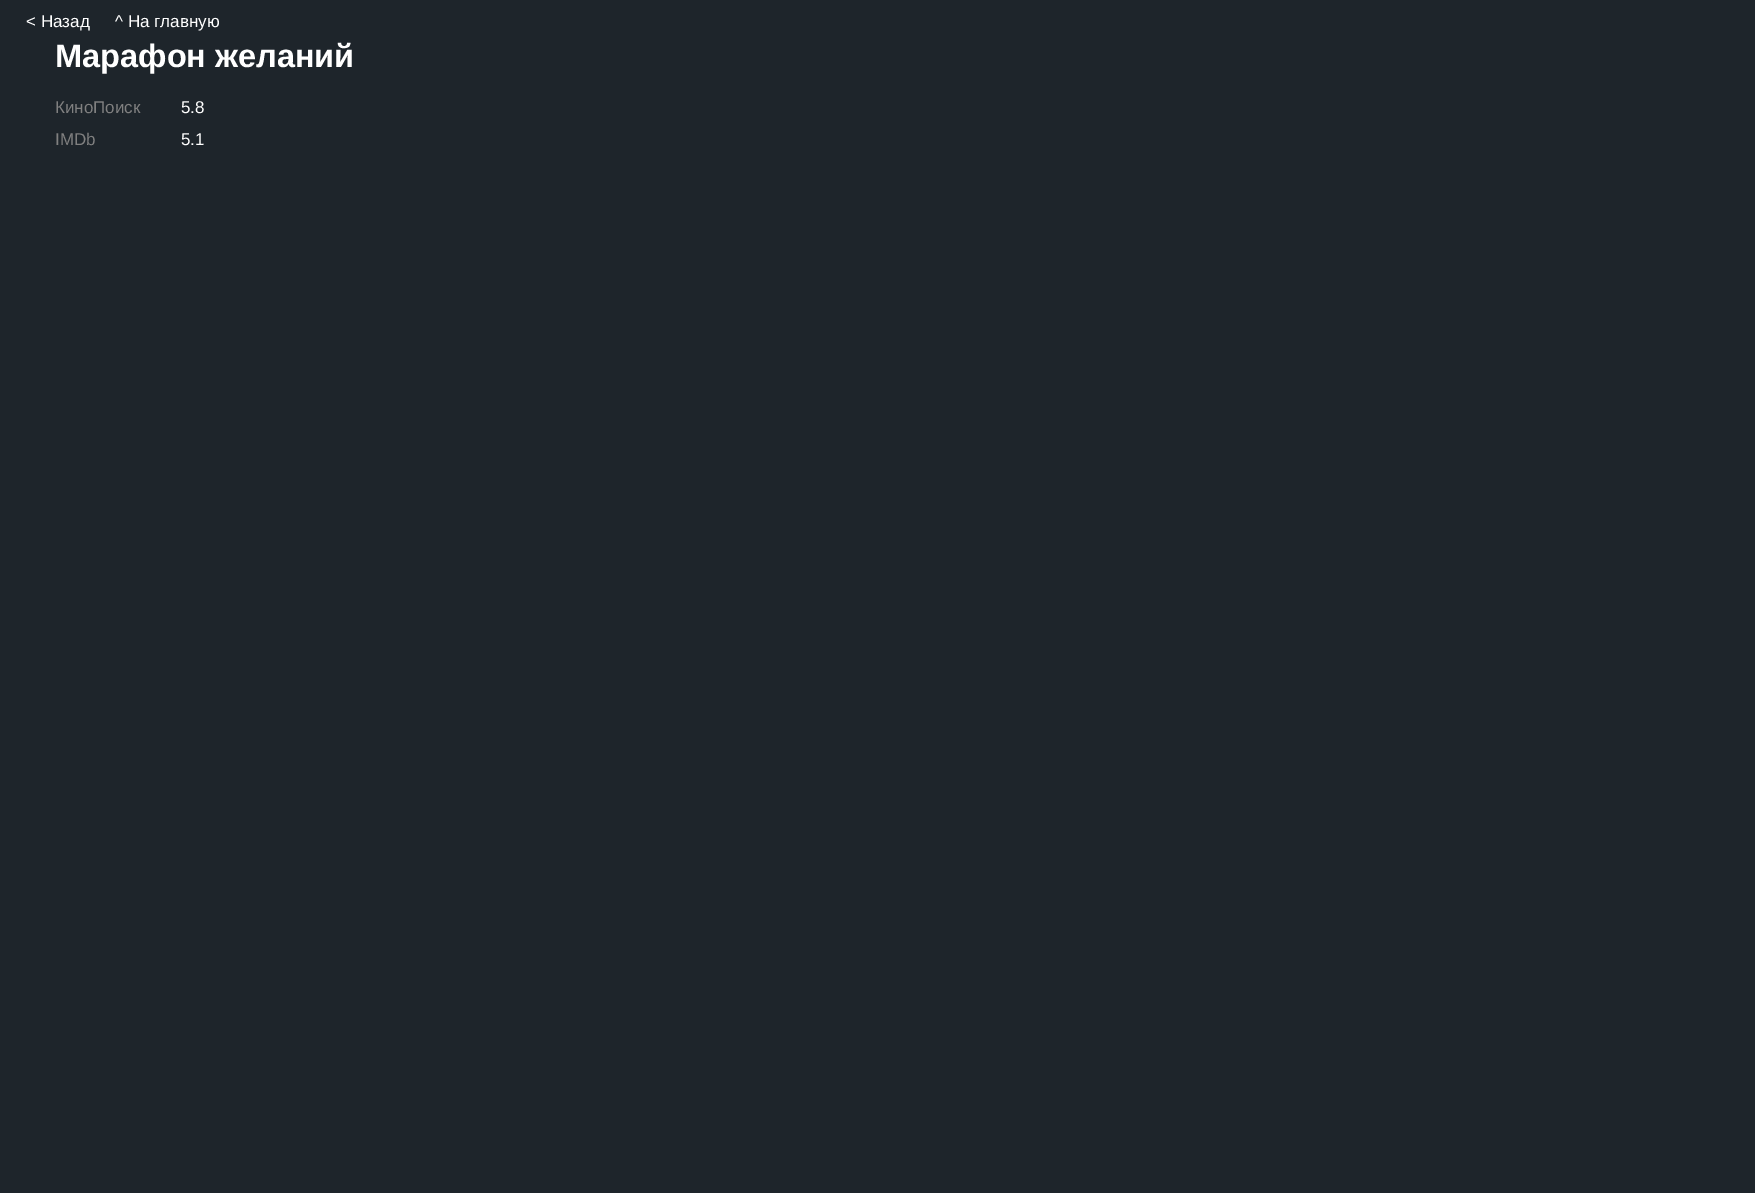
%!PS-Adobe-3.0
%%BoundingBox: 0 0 1755 1193
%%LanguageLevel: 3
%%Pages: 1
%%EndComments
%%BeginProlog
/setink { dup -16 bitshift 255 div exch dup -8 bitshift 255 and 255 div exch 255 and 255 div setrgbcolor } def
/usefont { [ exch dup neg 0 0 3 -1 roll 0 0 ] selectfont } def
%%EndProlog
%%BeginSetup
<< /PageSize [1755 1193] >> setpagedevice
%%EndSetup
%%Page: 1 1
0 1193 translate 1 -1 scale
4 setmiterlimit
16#1E252B setink
0 0 1755 1193 rectfill
/LiberationSans-Regular 17 usefont
16#FFFFFF setink
26 27 moveto (< Назад) show
115 27 moveto (^ На главную) show
/LiberationSans-Bold 32.5 usefont
55 67 moveto (Марафон желаний) show
/LiberationSans-Regular 17 usefont
16#808080 setink
55 113 moveto (КиноПоиск) show
16#FFFFFF setink
181 113 moveto (5.8) show
16#808080 setink
55 145 moveto (IMDb) show
16#FFFFFF setink
181 145 moveto (5.1) show
showpage
%%EOF
